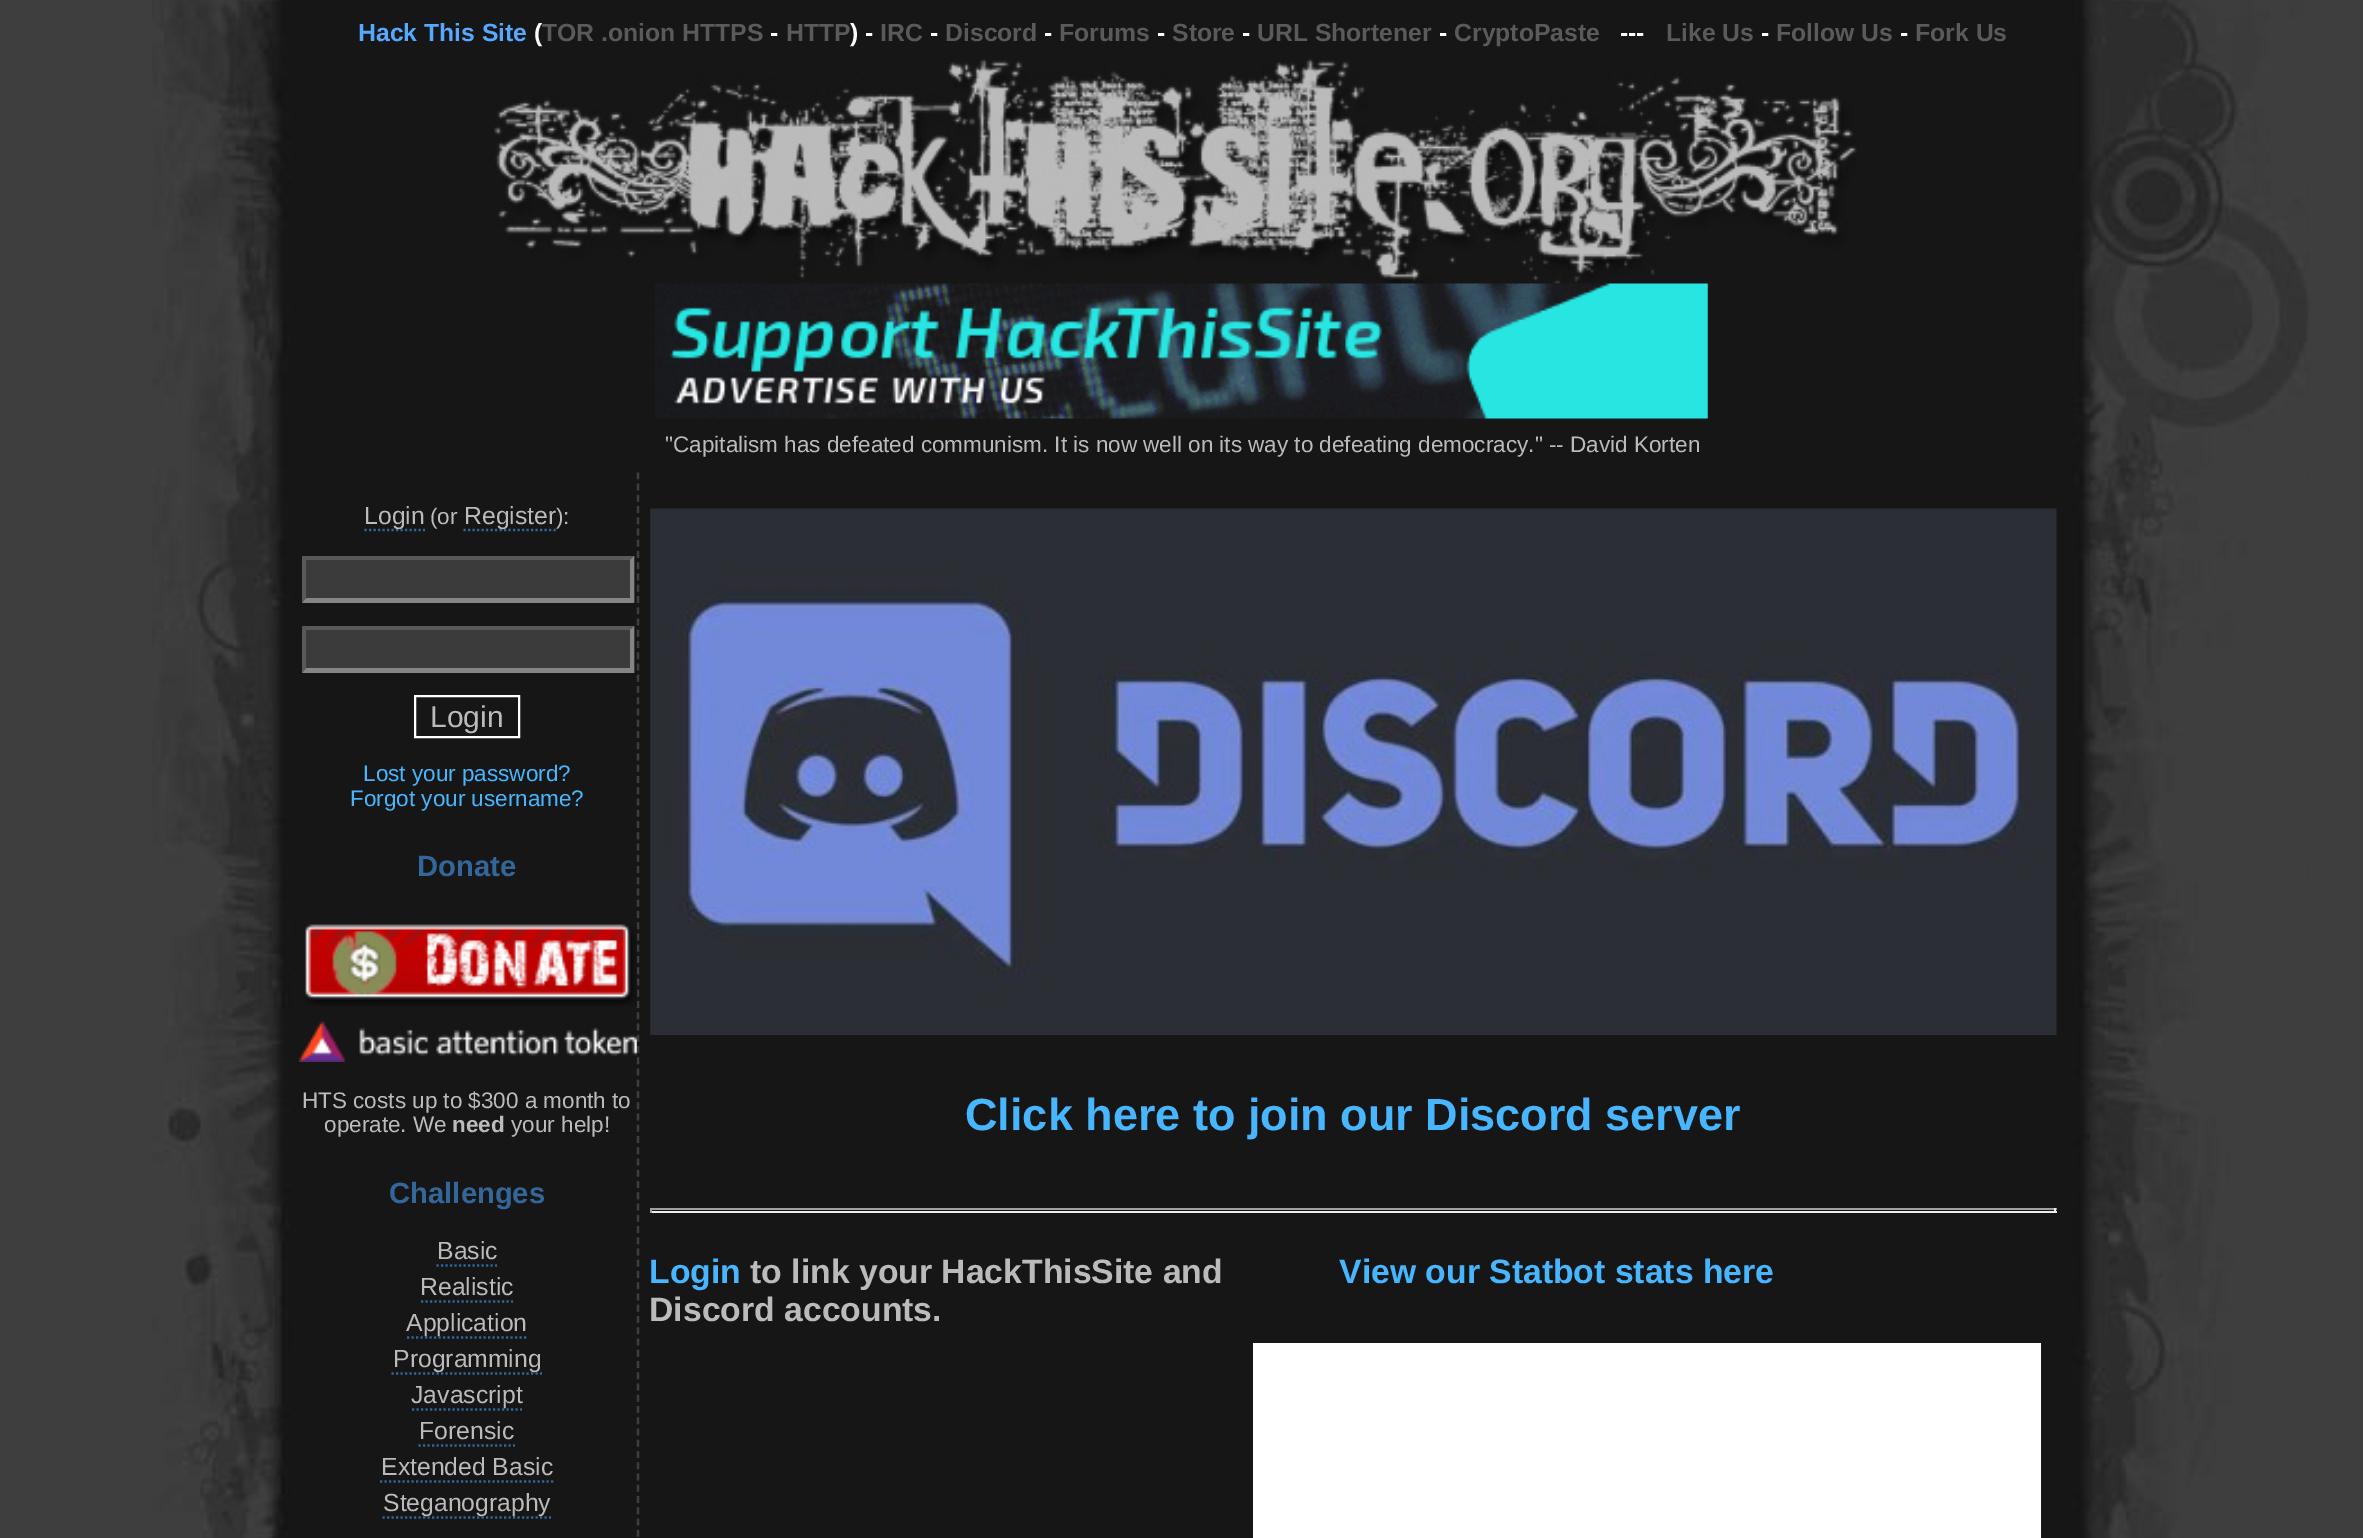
%!PS-Adobe-3.0
%%BoundingBox: 0 0 2363 1538
%%LanguageLevel: 3
%%Pages: 1
%%EndComments
%%BeginProlog
/setink { dup -16 bitshift 255 div exch dup -8 bitshift 255 and 255 div exch 255 and 255 div setrgbcolor } def
/usefont { [ exch dup neg 0 0 3 -1 roll 0 0 ] selectfont } def
/drawimage { 5 dict begin { /h /w /y /x /name } { exch def } forall
  gsave x y translate w h scale
  w h 8 [w 0 0 h 0 0] name (r) file false 3 colorimage grestore end } def
%%EndProlog
%%BeginSetup
<< /PageSize [2363 1538] >> setpagedevice
%%EndSetup
%%Page: 1 1
0 1538 translate 1 -1 scale
4 setmiterlimit
16#3E3E3E setink
0 0 2363 1538 rectfill
(img1.raw) 152 0 2157 18 drawimage
(img2.raw) 152 18 2157 1520 drawimage
/LiberationSans-Bold 24.75 usefont
16#55AAFF setink
358 41 moveto (Hack This Site) show
16#FFFFFF setink
534 41 moveto (\() show
16#595A5A setink
542 41 moveto (TOR .onion HTTPS) show
16#FFFFFF setink
770 41 moveto (-) show
16#595A5A setink
786 41 moveto (HTTP) show
16#FFFFFF setink
850 41 moveto (\) -) show
16#595A5A setink
880 41 moveto (IRC) show
16#FFFFFF setink
930 41 moveto (-) show
16#595A5A setink
945 41 moveto (Discord) show
16#FFFFFF setink
1044 41 moveto (-) show
16#595A5A setink
1059 41 moveto (Forums) show
16#FFFFFF setink
1157 41 moveto (-) show
16#595A5A setink
1172 41 moveto (Store) show
16#FFFFFF setink
1242 41 moveto (-) show
16#595A5A setink
1257 41 moveto (URL Shortener) show
16#FFFFFF setink
1439 41 moveto (-) show
16#595A5A setink
1454 41 moveto (CryptoPaste) show
16#FFFFFF setink
1620 41 moveto (---) show
16#595A5A setink
1666 41 moveto (Like Us) show
16#FFFFFF setink
1761 41 moveto (-) show
16#595A5A setink
1776 41 moveto (Follow Us) show
16#FFFFFF setink
1900 41 moveto (-) show
16#595A5A setink
1915 41 moveto (Fork Us) show
(img3.raw) 494 58 1363 226 drawimage
(img4.raw) 655 283 1053 136 drawimage
/LiberationSans-Regular 22.5 usefont
16#BBBBBB setink
665 452 moveto ("Capitalism has defeated communism. It is now well on its way to defeating democracy." -- David Korten) show
16#3E3E3E setink
2.2 setlinewidth
[6.75 4.5] 0 setdash
638 472.5 moveto 638 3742 lineto stroke
16#336699 setink
[2.25 2.25] 0 setdash
364.5 530 moveto 425 530 lineto stroke
/LiberationSans-Regular 24.75 usefont
16#BBBBBB setink
364 524 moveto (Login) show
/LiberationSans-Regular 22.5 usefont
430 524 moveto (\(or) show
16#336699 setink
463.5 530 moveto 556 530 lineto stroke
/LiberationSans-Regular 24.75 usefont
16#BBBBBB setink
464 524 moveto (Register) show
/LiberationSans-Regular 22.5 usefont
556 524 moveto (\):) show
16#3B3B3B setink
302 556 333 47 rectfill
16#595959 setink
302 556 moveto 634 556 lineto 630 560 lineto 306 560 lineto closepath fill
16#858585 setink
634 556 moveto 634 603 lineto 630 598 lineto 630 560 lineto closepath fill
634 603 moveto 302 603 lineto 306 598 lineto 630 598 lineto closepath fill
16#595959 setink
302 603 moveto 302 556 lineto 306 560 lineto 306 598 lineto closepath fill
16#3B3B3B setink
302 626 333 47 rectfill
16#595959 setink
302 626 moveto 634 626 lineto 630 630 lineto 306 630 lineto closepath fill
16#858585 setink
634 626 moveto 634 673 lineto 630 668 lineto 630 630 lineto closepath fill
634 673 moveto 302 673 lineto 306 668 lineto 630 668 lineto closepath fill
16#595959 setink
302 673 moveto 302 626 lineto 306 630 lineto 306 668 lineto closepath fill
16#FFFFFF setink
2 setlinewidth
[] 0 setdash
415 696 104 41 rectstroke
/LiberationSans-Regular 30 usefont
16#BBBBBB setink
430 727 moveto (Login) show
/LiberationSans-Regular 22.5 usefont
16#47B6FF setink
363 781 moveto (Lost your password?) show
350 806 moveto (Forgot your username?) show
/LiberationSans-Bold 29.25 usefont
16#336699 setink
417 876 moveto (Donate) show
(img5.raw) 305 924 332 83 drawimage
(img6.raw) 299 1021 338 41 drawimage
/LiberationSans-Regular 22.5 usefont
16#BBBBBB setink
302 1108 moveto (HTS costs up to $300 a month to) show
324 1132 moveto (operate. We) show
/LiberationSans-Bold 22.5 usefont
452 1132 moveto (need) show
/LiberationSans-Regular 22.5 usefont
511 1132 moveto (your help!) show
/LiberationSans-Bold 29.25 usefont
16#336699 setink
389 1203 moveto (Challenges) show
/LiberationSans-Regular 24.75 usefont
16#BBBBBB setink
437 1259 moveto (Basic) show
16#336699 setink
2.2 setlinewidth
[2.25 2.25] 0 setdash
436.5 1265.5 moveto 497 1265.5 lineto stroke
16#BBBBBB setink
420 1295 moveto (Realistic) show
16#336699 setink
421 1301.5 moveto 513 1301.5 lineto stroke
407 1337.5 moveto 526.5 1337.5 lineto stroke
16#BBBBBB setink
406 1331 moveto (Application) show
16#336699 setink
391.5 1373.5 moveto 542 1373.5 lineto stroke
16#BBBBBB setink
393 1367 moveto (Programming) show
16#336699 setink
412 1409.5 moveto 522 1409.5 lineto stroke
16#BBBBBB setink
411 1403 moveto (Javascript) show
419 1439 moveto (Forensic) show
16#336699 setink
418.5 1445.5 moveto 515 1445.5 lineto stroke
16#BBBBBB setink
381 1475 moveto (Extended Basic) show
16#336699 setink
380 1481.5 moveto 553.5 1481.5 lineto stroke
382.5 1517.5 moveto 551 1517.5 lineto stroke
16#BBBBBB setink
383 1511 moveto (Steganography) show
(img7.raw) 650 508 1407 527 drawimage
/LiberationSans-Bold 45 usefont
16#47B6FF setink
965 1130 moveto (Click here to join our Discord server) show
[
    [650 1208 1407 2 16#9F9F9F]
    [2054 1208 2 5 16#EEEEEE]
    [650 1211 1407 2 16#EEEEEE]
    [650 1208 2 5 16#9F9F9F]
] { aload pop setink rectfill } forall
/LiberationSans-Bold 33.75 usefont
16#47B6FF setink
649 1283 moveto (Login) show
16#BBBBBB setink
750 1283 moveto (to link your HackThisSite and) show
649 1321 moveto (Discord accounts.) show
16#47B6FF setink
1339 1283 moveto (View our Statbot stats here) show
16#FFFFFF setink
1253 1343 788 195 rectfill
showpage
%%EOF
